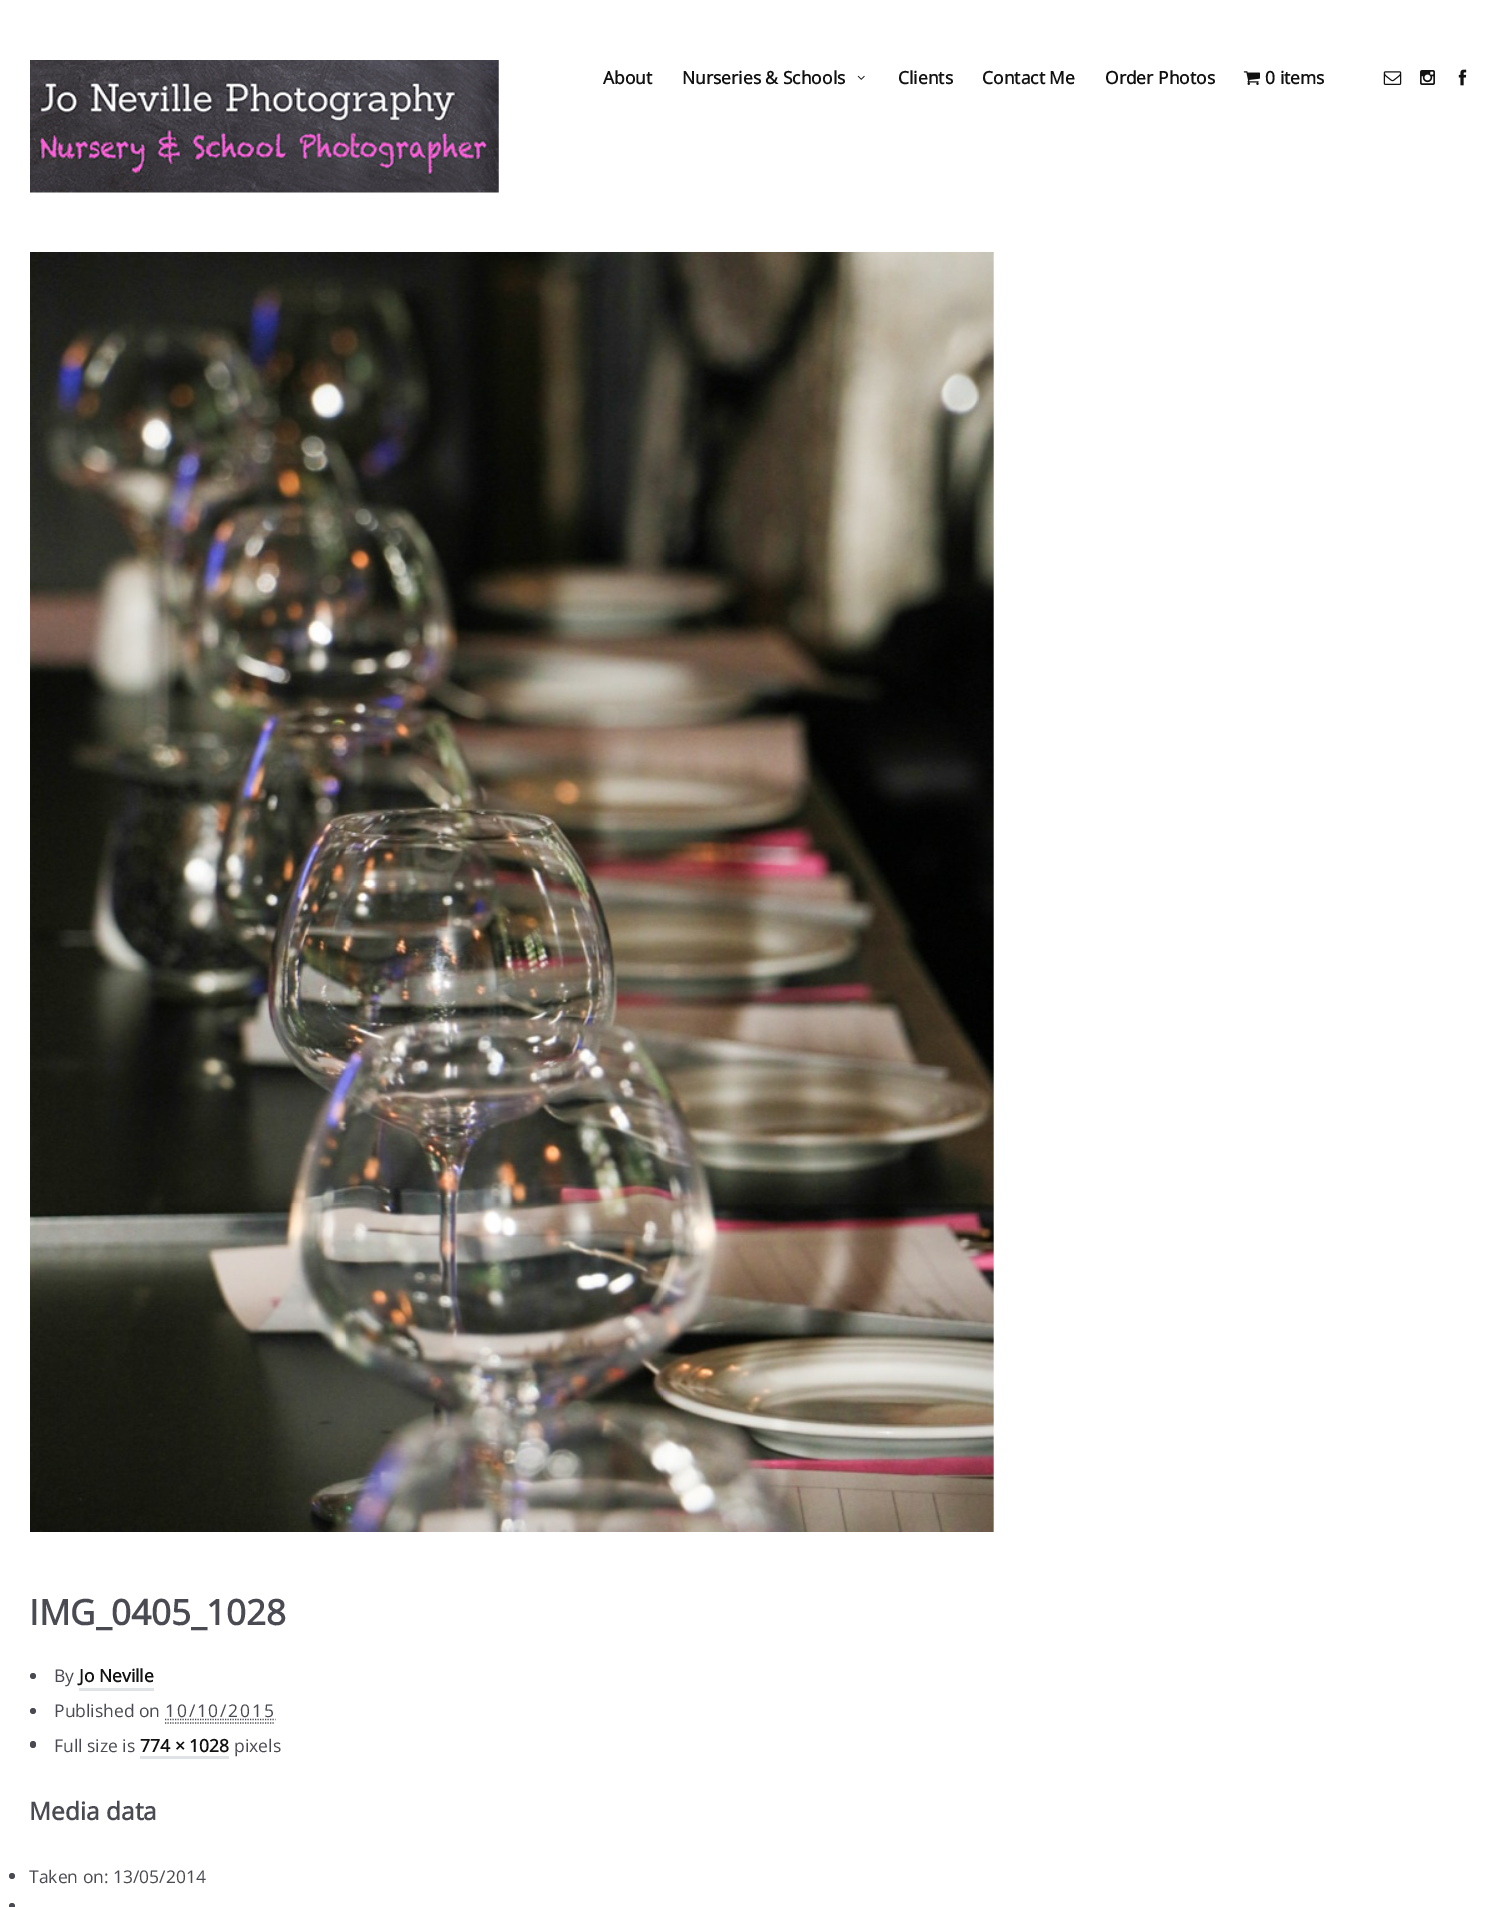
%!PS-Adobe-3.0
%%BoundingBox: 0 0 1508 1907
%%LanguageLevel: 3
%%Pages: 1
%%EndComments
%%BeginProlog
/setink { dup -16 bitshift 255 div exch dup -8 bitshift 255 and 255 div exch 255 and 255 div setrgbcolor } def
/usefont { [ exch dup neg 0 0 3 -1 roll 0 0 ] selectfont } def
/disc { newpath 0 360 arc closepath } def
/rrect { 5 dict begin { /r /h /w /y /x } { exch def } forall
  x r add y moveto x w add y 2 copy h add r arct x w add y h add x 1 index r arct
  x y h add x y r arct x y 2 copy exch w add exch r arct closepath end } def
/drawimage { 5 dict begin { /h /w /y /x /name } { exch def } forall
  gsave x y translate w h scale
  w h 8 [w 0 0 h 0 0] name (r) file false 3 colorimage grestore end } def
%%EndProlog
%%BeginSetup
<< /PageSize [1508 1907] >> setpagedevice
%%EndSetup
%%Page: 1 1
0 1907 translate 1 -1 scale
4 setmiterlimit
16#FFFFFF setink
0 0 1508 1907 rectfill
(img1.raw) 30 60 469 133 drawimage
/OpenSans-Bold 17.5 usefont
16#111111 setink
603 84 moveto (About) show
682 84 moveto (Nurseries & Schools) show
(img2.raw) 857 75 8 5 drawimage
[
    [(Clients) 898 84]
    [(Contact Me) 982 84]
    [(Order Photos) 1105 84]
] { aload pop moveto show } forall
(img3.raw) 1243 71 17 14 drawimage
1265 84 moveto (0 items) show
(img4.raw) 1383 71 19 14 drawimage
(img5.raw) 1420 70 15 15 drawimage
(img6.raw) 1458 69 9 17 drawimage
(img7.raw) 30 252 964 1280 drawimage
/OpenSans-Bold 35 usefont
16#494A52 setink
29 1625 moveto (IMG_0405_1028) show
33 1676 3 disc fill
/OpenSans-Regular 17.5 usefont
54 1682 moveto (By) show
/OpenSans-Bold 17.5 usefont
16#111111 setink
79 1682 moveto (Jo Neville) show
16#E0E3E5 setink
79 1688 75 3 rectfill
16#494A52 setink
33 1711 3 disc fill
/OpenSans-Regular 17.5 usefont
54 1717 moveto (Published on) show
165 1717 moveto 1.75 0 (10/10/2015) ashow
1.2 setlinewidth
[1.25 1.25] 0 setdash
165 1723 moveto 275 1723 lineto stroke
165 1719.5 moveto 275.5 1719.5 lineto stroke
30 1741 6 7 3 rrect fill
54 1752 moveto (Full size is) show
/OpenSans-Bold 17.5 usefont
16#111111 setink
140 1752 moveto (774 × 1028) show
16#E0E3E5 setink
140 1756 89 3 rectfill
/OpenSans-Regular 17.5 usefont
16#494A52 setink
234 1752 moveto (pixels) show
/OpenSans-Bold 24.5 usefont
29 1820 moveto (Media data) show
12 1876 3 disc fill
/OpenSans-Regular 17.5 usefont
29 1883 moveto (Taken on: 13/05/2014) show
12 1906 3 disc fill
showpage
%%EOF
